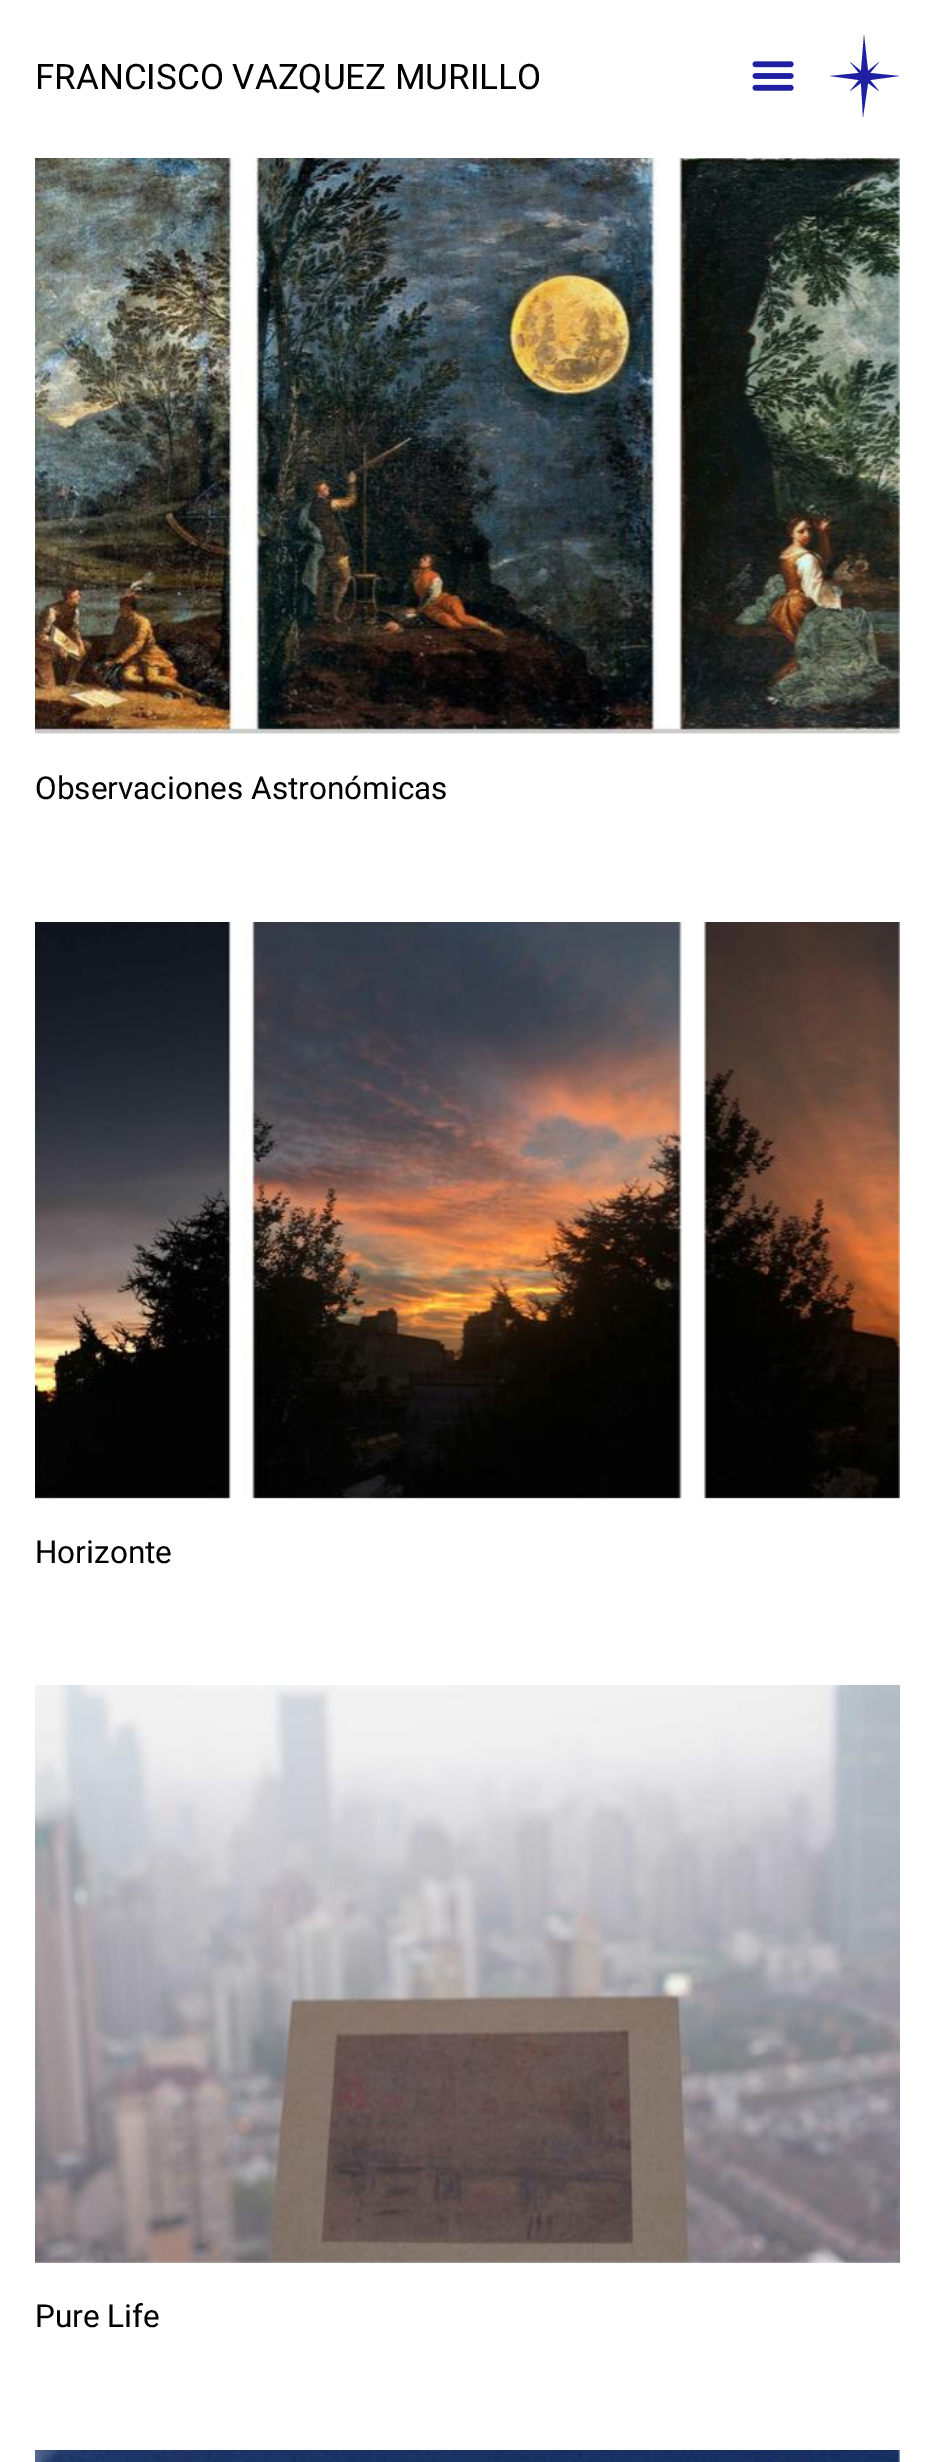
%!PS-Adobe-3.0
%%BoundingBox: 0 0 933 2462
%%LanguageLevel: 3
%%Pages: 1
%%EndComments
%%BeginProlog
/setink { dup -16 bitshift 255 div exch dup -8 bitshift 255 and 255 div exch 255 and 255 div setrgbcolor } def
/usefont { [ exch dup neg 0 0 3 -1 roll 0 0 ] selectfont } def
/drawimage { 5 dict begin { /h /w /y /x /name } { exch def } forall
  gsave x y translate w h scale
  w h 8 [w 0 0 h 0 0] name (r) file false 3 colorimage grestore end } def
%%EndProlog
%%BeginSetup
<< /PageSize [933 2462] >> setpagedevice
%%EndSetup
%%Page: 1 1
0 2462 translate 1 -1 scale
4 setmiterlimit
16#FFFFFF setink
0 0 933 2462 rectfill
/Heebo-Regular 35 usefont
16#000000 setink
35 89 moveto (FRANCISCO VAZQUEZ MURILLO) show
(img1.raw) 752 61 42 30 drawimage
16#1F1FA3 setink
870 73 moveto 899 76 lineto 870 80 lineto 879 91 lineto 868 83 lineto 863 117 lineto 861 83 lineto 850 91 lineto 859 80 lineto 830 76 lineto 859 73 lineto 850 62 lineto 861 71 lineto 864 35 lineto 868 71 lineto 879 62 lineto closepath fill
(img2.raw) 35 158 865 576 drawimage
/Heebo-Regular 31.5 usefont
16#000000 setink
35 799 moveto (Observaciones Astronómicas) show
(img3.raw) 35 922 865 577 drawimage
35 1563 moveto (Horizonte) show
(img4.raw) 35 1685 865 578 drawimage
35 2327 moveto (Pure Life) show
(img5.raw) 35 2450 865 12 drawimage
showpage
%%EOF
